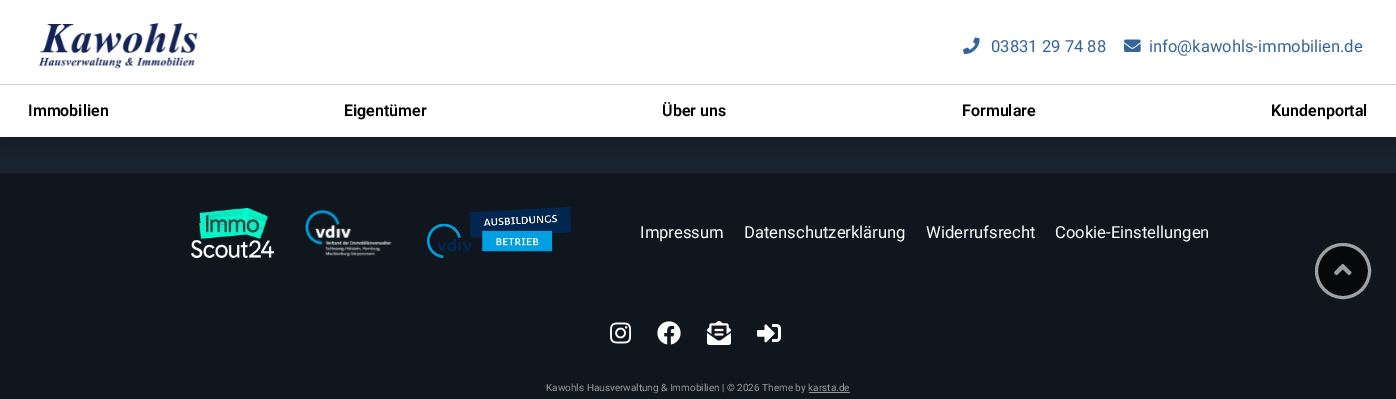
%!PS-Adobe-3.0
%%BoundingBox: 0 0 1396 399
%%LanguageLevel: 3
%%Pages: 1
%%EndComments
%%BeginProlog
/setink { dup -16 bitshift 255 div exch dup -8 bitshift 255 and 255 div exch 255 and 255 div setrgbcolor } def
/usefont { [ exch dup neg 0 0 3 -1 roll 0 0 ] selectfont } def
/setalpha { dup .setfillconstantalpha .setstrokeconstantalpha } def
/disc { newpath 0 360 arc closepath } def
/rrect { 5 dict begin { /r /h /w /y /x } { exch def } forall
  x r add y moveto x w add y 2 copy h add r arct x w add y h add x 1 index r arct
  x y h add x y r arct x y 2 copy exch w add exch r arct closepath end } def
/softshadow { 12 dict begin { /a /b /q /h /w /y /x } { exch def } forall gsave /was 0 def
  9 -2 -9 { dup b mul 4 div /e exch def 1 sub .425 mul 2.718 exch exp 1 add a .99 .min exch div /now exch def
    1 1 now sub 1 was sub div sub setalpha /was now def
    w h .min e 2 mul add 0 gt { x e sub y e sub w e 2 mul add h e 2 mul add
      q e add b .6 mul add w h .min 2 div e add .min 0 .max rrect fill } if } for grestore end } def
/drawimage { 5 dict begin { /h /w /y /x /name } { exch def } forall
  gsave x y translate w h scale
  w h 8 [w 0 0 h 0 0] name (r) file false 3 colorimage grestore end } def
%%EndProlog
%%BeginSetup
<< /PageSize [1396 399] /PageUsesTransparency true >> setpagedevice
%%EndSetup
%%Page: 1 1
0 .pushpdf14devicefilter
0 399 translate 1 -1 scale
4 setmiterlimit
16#10161E setink
0 0 1396 399 rectfill
16#19222F setink
0 137 1396 36 rectfill
16#000000 setink
0 0 1396 137 0 10 0.4 softshadow
16#FFFFFF setink
0 0 1396 137 rectfill
(img1.raw) 38 23 160 46 drawimage
(img2.raw) 963 37 17 18 drawimage
/Roboto-Regular 16.6 usefont
16#356498 setink
991 52 moveto (03831 29 74 88) show
(img3.raw) 1124 39 17 13 drawimage
1149 52 moveto (info@kawohls-immobilien.de) show
16#CCCCCC setink
0 84 1396 1 rectfill
/Roboto-SemiBold 16 usefont
16#000000 setink
[
    [(Immobilien) 28 116]
    [(Eigentümer) 344 116]
    [(Über uns) 662 116]
    [(Formulare) 962 116]
    [(Kundenportal) 1271 116]
] { aload pop moveto show } forall
(img4.raw) 191 208 83 50 drawimage
(img5.raw) 305 209 87 48 drawimage
(img6.raw) 427 206 145 53 drawimage
/Roboto-Regular 16.6 usefont
16#FFFFFF setink
[
    [(Impressum) 640 238]
    [(Datenschutzerklärung) 744 238]
    [(Widerrufsrecht) 926 238]
    [(Cookie-Einstellungen) 1055 238]
] { aload pop moveto show } forall
(img7.raw) 610 322 22 22 drawimage
(img8.raw) 657 321 24 24 drawimage
(img9.raw) 707 321 24 24 drawimage
(img10.raw) 757 324 24 19 drawimage
/Roboto-Regular 10 usefont
16#999999 setink
546 391 moveto (Kawohls Hausverwaltung & Immobilien | © 2026 Theme by karsta.de) show
809 392 41 1 rectfill
16#06090C setink
1343 271 26.5 disc gsave fill grestore
16#9FA2A5 setink
3 setlinewidth
stroke
(img11.raw) 1334 263 18 13 drawimage
.poppdf14devicefilter showpage
%%EOF
